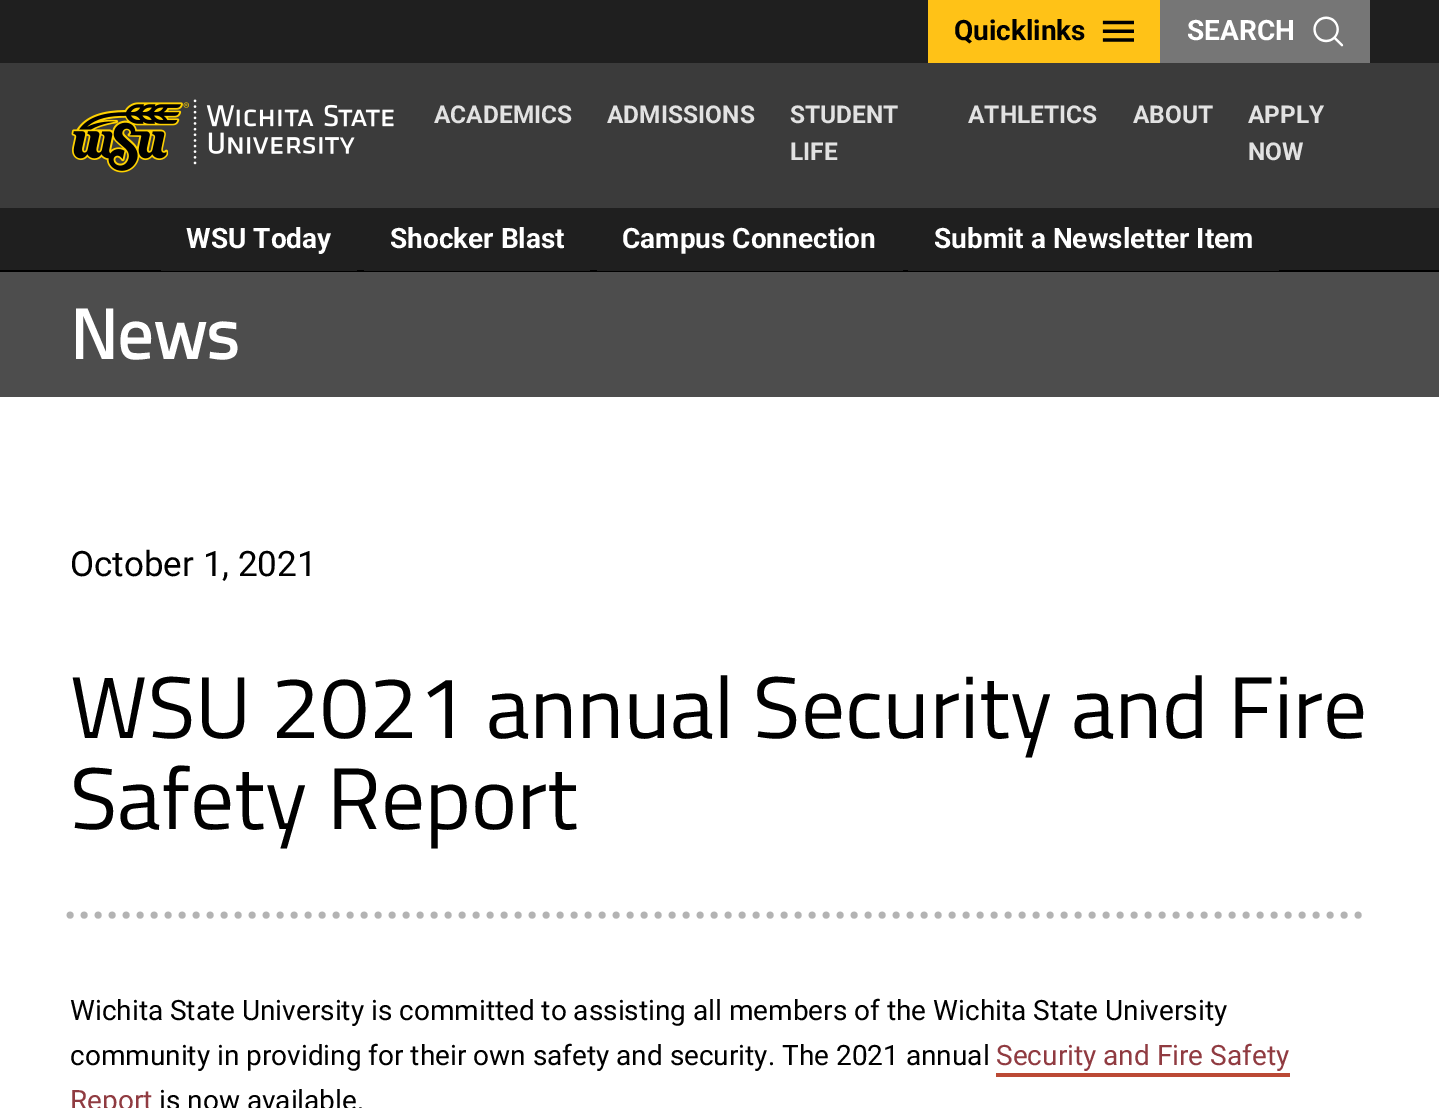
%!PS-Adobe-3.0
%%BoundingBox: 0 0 1439 1108
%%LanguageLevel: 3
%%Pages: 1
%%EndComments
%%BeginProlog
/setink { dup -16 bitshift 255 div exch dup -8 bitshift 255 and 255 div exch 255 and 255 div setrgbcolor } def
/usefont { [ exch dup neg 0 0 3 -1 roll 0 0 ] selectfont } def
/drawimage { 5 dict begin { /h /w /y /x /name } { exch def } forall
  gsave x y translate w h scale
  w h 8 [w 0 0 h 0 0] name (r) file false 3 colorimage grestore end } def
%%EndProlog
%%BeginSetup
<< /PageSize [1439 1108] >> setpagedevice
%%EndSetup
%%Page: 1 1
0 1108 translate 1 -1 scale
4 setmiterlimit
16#FFFFFF setink
0 0 1439 1108 rectfill
[
    [0 63 1439 145 16#3B3B3B]
    [0 0 1439 63 16#1F1F1F]
    [928 0 232 63 16#FFC217]
] { aload pop setink rectfill } forall
/Roboto-Bold 28 usefont
16#000000 setink
954 40 moveto (Quicklinks) show
(img1.raw) 1102 20 32 22 drawimage
16#767676 setink
1160 0 210 63 rectfill
16#FFFFFF setink
1187 40 moveto (SEARCH) show
(img2.raw) 1313 16 31 31 drawimage
(img3.raw) 71 99 323 74 drawimage
/Roboto-Bold 24.5 usefont
16#E2E2E2 setink
[
    [(ACADEMICS) 434 123]
    [(ADMISSIONS) 607 123]
    [(STUDENT) 790 123]
    [(LIFE) 790 160]
    [(ATHLETICS) 968 123]
    [(ABOUT) 1133 123]
    [(APPLY) 1248 123]
    [(NOW) 1248 160]
] { aload pop moveto show } forall
[
    [0 208 1439 62 16#1F1F1F]
    [0 270 1439 2 16#000000]
    [161 270 196 1 16#1F1F1F]
] { aload pop setink rectfill } forall
/Roboto-Bold 28 usefont
16#FFFFFF setink
186 248 moveto (WSU Today) show
16#1F1F1F setink
364 270 226 1 rectfill
16#FFFFFF setink
390 248 moveto (Shocker Blast) show
16#1F1F1F setink
597 270 306 1 rectfill
16#FFFFFF setink
622 248 moveto (Campus Connection) show
16#1F1F1F setink
908 270 371 1 rectfill
16#FFFFFF setink
934 248 moveto (Submit a Newsletter Item) show
16#4D4D4D setink
0 272 1439 125 rectfill
/TitilliumWeb-Bold 70 usefont
16#FFFFFF setink
70 359 moveto (News) show
16#B3B3B3 setink
7 setlinewidth
1 setlinecap
[0 14] 0 setdash
70 915 moveto 1370 915 lineto stroke
/Roboto-Regular 35 usefont
16#000000 setink
70 576 moveto (October 1, 2021) show
/TitilliumWeb-Regular 87.5 usefont
70 738 moveto (WSU 2021 annual Security and Fire) show
70 829 moveto (Safety Report) show
/Roboto-Regular 28 usefont
70 1020 moveto (Wichita State University is committed to assisting all members of the Wichita State University) show
70 1065 moveto (community in providing for their own safety and security. The 2021 annual) show
16#903B41 setink
996 1065 moveto (Security and Fire Safety) show
16#BB4935 setink
996 1073 294 4 rectfill
16#903B41 setink
70 1110 moveto (Report) show
16#000000 setink
159 1110 moveto (is now available.) show
showpage
%%EOF
